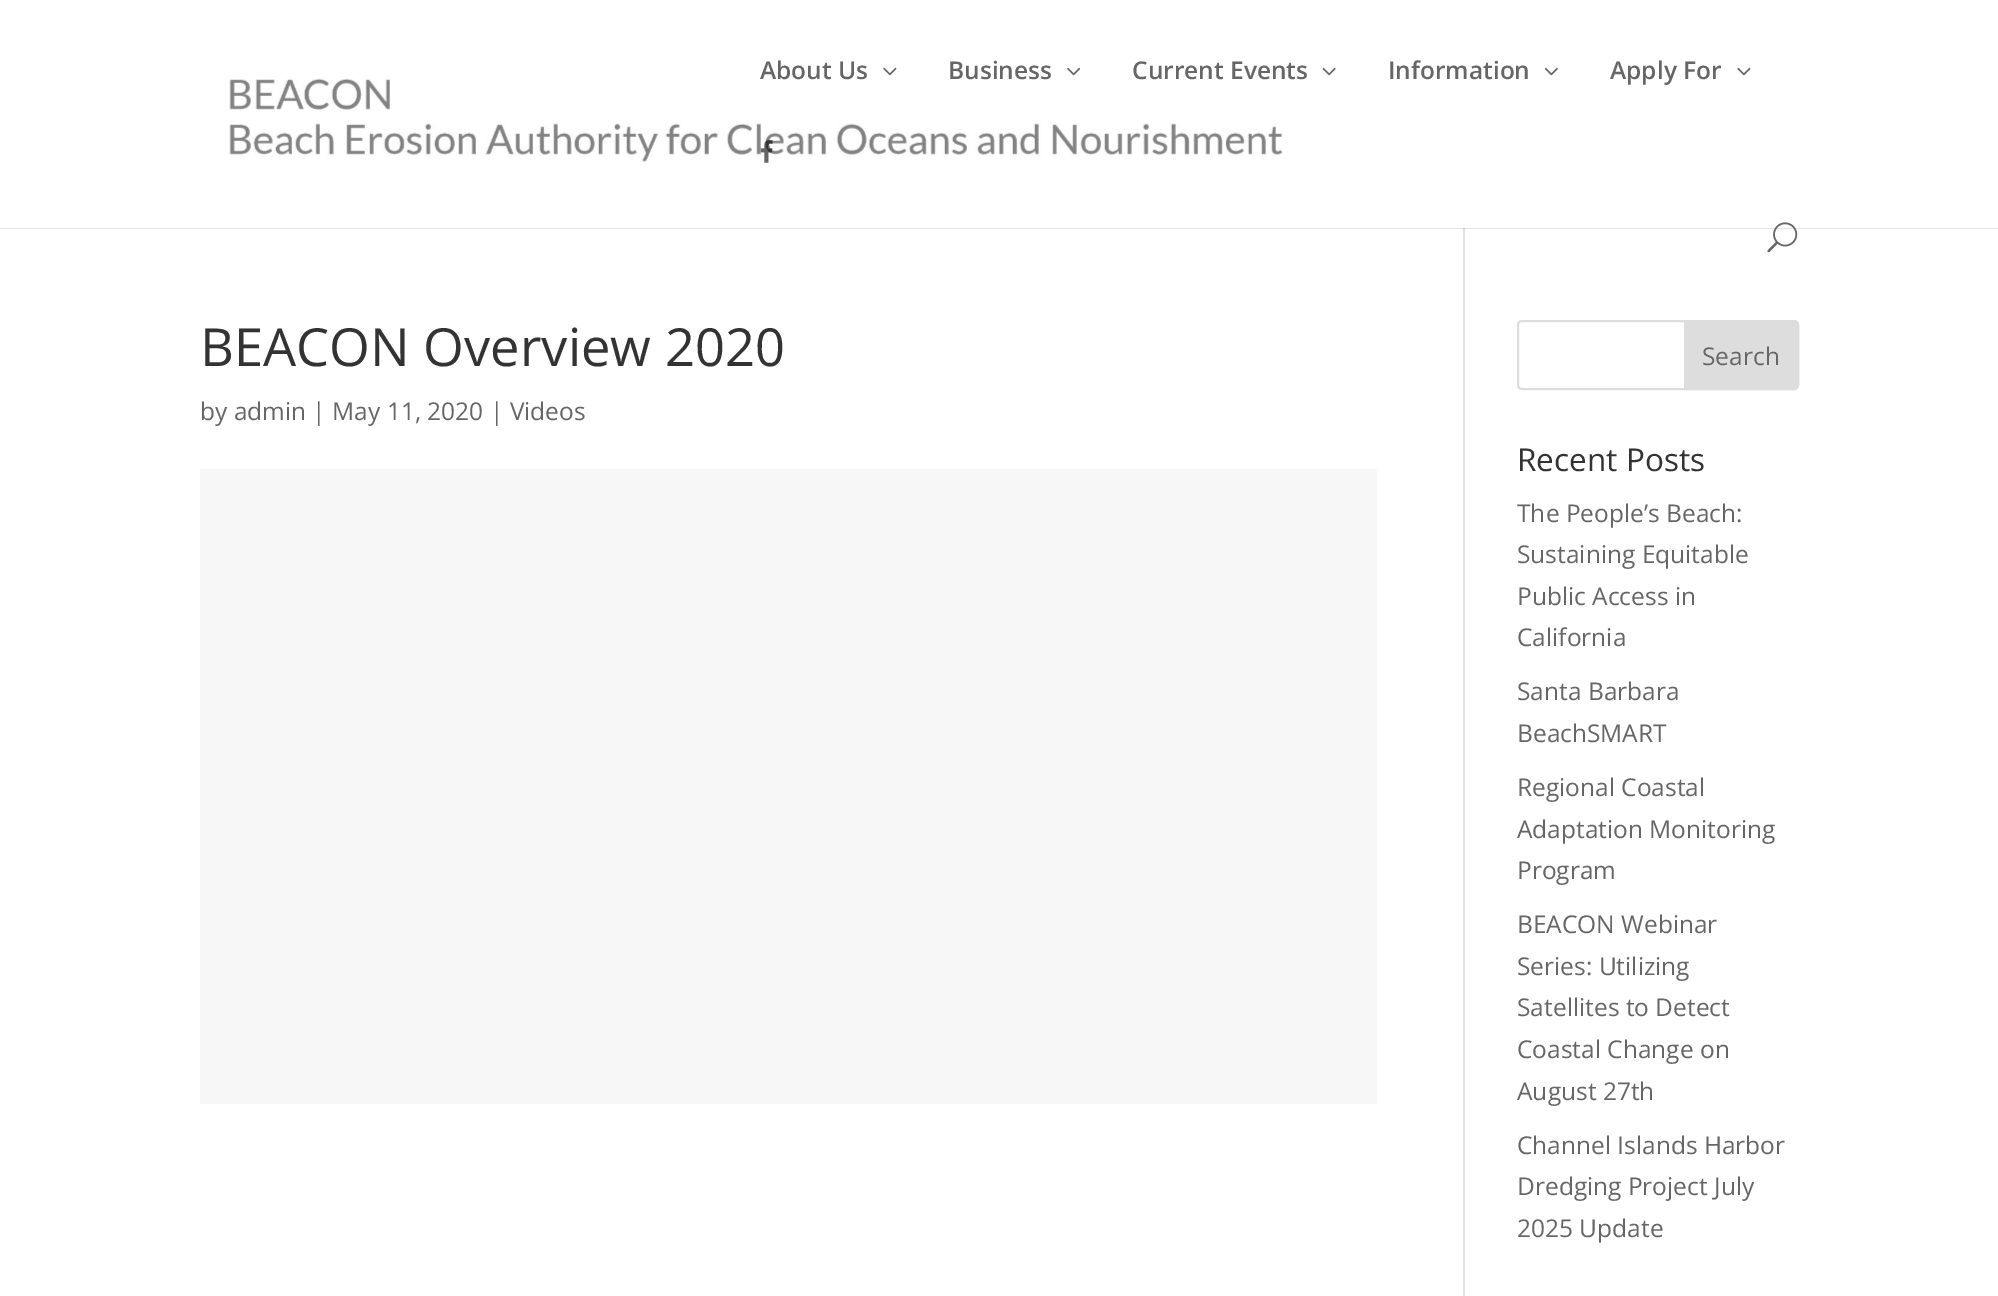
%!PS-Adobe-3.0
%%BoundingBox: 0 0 1998 1296
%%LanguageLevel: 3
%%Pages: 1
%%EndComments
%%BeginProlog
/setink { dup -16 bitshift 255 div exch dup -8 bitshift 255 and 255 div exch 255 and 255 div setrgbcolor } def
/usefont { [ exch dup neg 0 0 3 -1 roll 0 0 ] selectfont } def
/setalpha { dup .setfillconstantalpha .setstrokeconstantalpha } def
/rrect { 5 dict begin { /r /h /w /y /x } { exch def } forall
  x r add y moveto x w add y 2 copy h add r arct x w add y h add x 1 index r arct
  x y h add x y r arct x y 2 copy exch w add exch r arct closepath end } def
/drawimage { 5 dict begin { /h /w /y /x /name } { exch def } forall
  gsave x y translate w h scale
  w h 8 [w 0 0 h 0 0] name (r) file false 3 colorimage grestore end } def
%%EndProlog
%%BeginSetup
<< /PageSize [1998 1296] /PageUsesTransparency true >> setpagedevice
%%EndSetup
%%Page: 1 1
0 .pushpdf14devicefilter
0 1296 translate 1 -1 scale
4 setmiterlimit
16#FFFFFF setink
0 0 1998 1296 rectfill
16#E2E2E2 setink
1463 228 2 1068 rectfill
0.1 setalpha
16#000000 setink
0 228 moveto 0 229 lineto 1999 229 lineto 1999 2 lineto 1998 2 lineto 1998 228 lineto closepath fill
1 setalpha
(img7.raw) 229 78 1054 84 drawimage
/OpenSans-SemiBold 24.5 usefont
16#666666 setink
760 79 moveto (About Us) show
(img1.raw) 883 67 14 9 drawimage
948 79 moveto (Business) show
(img2.raw) 1067 67 14 9 drawimage
1132 79 moveto (Current Events) show
(img3.raw) 1322 67 14 9 drawimage
1388 79 moveto (Information) show
(img4.raw) 1544 67 14 9 drawimage
1610 79 moveto (Apply For) show
(img1.raw) 1737 67 14 9 drawimage
(img5.raw) 760 140 13 23 drawimage
(img6.raw) 1767 222 31 31 drawimage
/OpenSans-Regular 52.5 usefont
16#333333 setink
200 366 moveto (BEACON Overview 2020) show
/OpenSans-Regular 24.5 usefont
16#666666 setink
200 420 moveto (by admin | May 11, 2020 | Videos) show
16#F7F7F7 setink
200 469 1177 635 rectfill
16#DDDDDD setink
2 setlinewidth
1518 321 280 68 4 rrect stroke
1685 321 moveto 1794 321 lineto 1796 321 1798 323 1798 325 curveto 1798 385 lineto 1798 387 1796 389 1794 389 curveto 1685 389 lineto closepath gsave fill grestore
stroke
16#666666 setink
1702 365 moveto (Search) show
/OpenSans-Regular 31.5 usefont
16#333333 setink
1517 471 moveto (Recent Posts) show
/OpenSans-Regular 24.5 usefont
16#666666 setink
[
    [(The People’s Beach:) 1517 522]
    [(Sustaining Equitable) 1517 563]
    [(Public Access in) 1517 605]
    [(California) 1517 646]
    [(Santa Barbara) 1517 700]
    [(BeachSMART) 1517 742]
    [(Regional Coastal) 1517 796]
    [(Adaptation Monitoring) 1517 838]
    [(Program) 1517 879]
    [(BEACON Webinar) 1517 933]
    [(Series: Utilizing) 1517 975]
    [(Satellites to Detect) 1517 1016]
    [(Coastal Change on) 1517 1058]
    [(August 27th) 1517 1100]
    [(Channel Islands Harbor) 1517 1154]
    [(Dredging Project July) 1517 1195]
    [(2025 Update) 1517 1237]
] { aload pop moveto show } forall
.poppdf14devicefilter showpage
%%EOF
